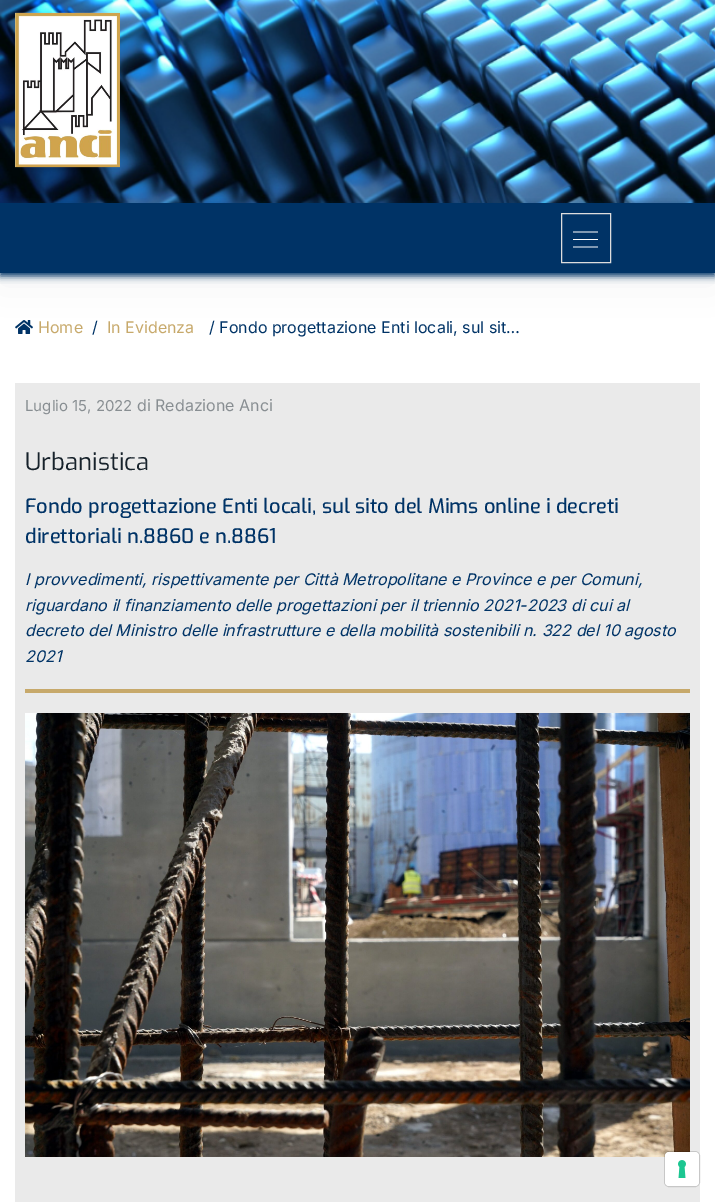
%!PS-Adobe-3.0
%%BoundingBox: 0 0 715 1202
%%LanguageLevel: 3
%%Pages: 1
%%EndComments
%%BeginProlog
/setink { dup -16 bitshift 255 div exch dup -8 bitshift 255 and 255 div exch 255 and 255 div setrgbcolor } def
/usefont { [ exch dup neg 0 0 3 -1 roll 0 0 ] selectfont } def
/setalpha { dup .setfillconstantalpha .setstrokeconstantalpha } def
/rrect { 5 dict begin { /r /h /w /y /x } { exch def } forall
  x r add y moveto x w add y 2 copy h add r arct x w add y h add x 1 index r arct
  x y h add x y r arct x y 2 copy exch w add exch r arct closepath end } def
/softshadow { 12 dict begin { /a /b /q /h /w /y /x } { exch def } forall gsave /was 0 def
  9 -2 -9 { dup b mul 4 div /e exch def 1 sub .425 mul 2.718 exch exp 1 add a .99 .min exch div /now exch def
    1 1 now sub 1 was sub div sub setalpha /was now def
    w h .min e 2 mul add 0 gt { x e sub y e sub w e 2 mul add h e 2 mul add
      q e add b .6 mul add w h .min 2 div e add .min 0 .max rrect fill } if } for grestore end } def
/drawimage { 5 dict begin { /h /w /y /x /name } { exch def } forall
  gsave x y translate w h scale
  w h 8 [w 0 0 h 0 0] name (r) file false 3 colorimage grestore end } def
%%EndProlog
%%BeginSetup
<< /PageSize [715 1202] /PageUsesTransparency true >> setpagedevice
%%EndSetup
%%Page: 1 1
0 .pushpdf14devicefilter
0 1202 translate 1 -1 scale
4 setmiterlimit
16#FFFFFF setink
0 0 715 1202 rectfill
(img4.raw) 15 320 18 14 drawimage
16#17222B setink
0 10 715 273 0 20 0.05 softshadow
(img1.raw) 0 0 715 203 drawimage
(img2.raw) 15 12 105 156 drawimage
16#003366 setink
0 206 715 70 0 3.5 1 softshadow
0 203 715 70 rectfill
16#DDDDDD setink
561.5 213.5 49 49 rectstroke
(img3.raw) 573 231 25 17 drawimage
/Inter-Regular 16 usefont
16#C7A96B setink
38 333 moveto (Home) show
16#003366 setink
92 333 moveto (/) show
16#C7A96B setink
107 333 moveto (In Evidenza) show
16#003366 setink
209 333 moveto (/ Fondo progettazione Enti locali, sul sit…) show
16#EAEAEA setink
15 383 685 819 rectfill
/Inter-Regular 15 usefont
16#888E92 setink
25 411 moveto (Luglio 15, 2022) show
/Inter-Regular 16 usefont
137 411 moveto (di Redazione Anci) show
16#C7A96B setink
25 689 665 4 rectfill
/Exo-Regular 24 usefont
16#17222B setink
25 470 moveto (Urbanistica) show
/Exo-Medium 20 usefont
16#003366 setink
25 513 moveto (Fondo progettazione Enti locali, sul sito del Mims online i decreti) show
25 543 moveto (direttoriali n.8860 e n.8861) show
/Inter-Italic 16 usefont
[
    [(I provvedimenti, rispettivamente per Città Metropolitane e Province e per Comuni,) 25 585]
    [(riguardano il finanziamento delle progettazioni per il triennio 2021-2023 di cui al) 25 611]
    [(decreto del Ministro delle infrastrutture e della mobilità sostenibili n. 322 del 10 agosto) 25 636]
    [(2021) 25 662]
] { aload pop moveto show } forall
(img5.raw) 25 713 665 444 drawimage
0.15 setalpha
16#000000 setink
664.5 1151.5 35 35 4.5 rrect stroke
1 setalpha
16#FFFFFF setink
665 1152 34 34 4 rrect fill
(img6.raw) 678 1160 8 18 drawimage
.poppdf14devicefilter showpage
%%EOF
